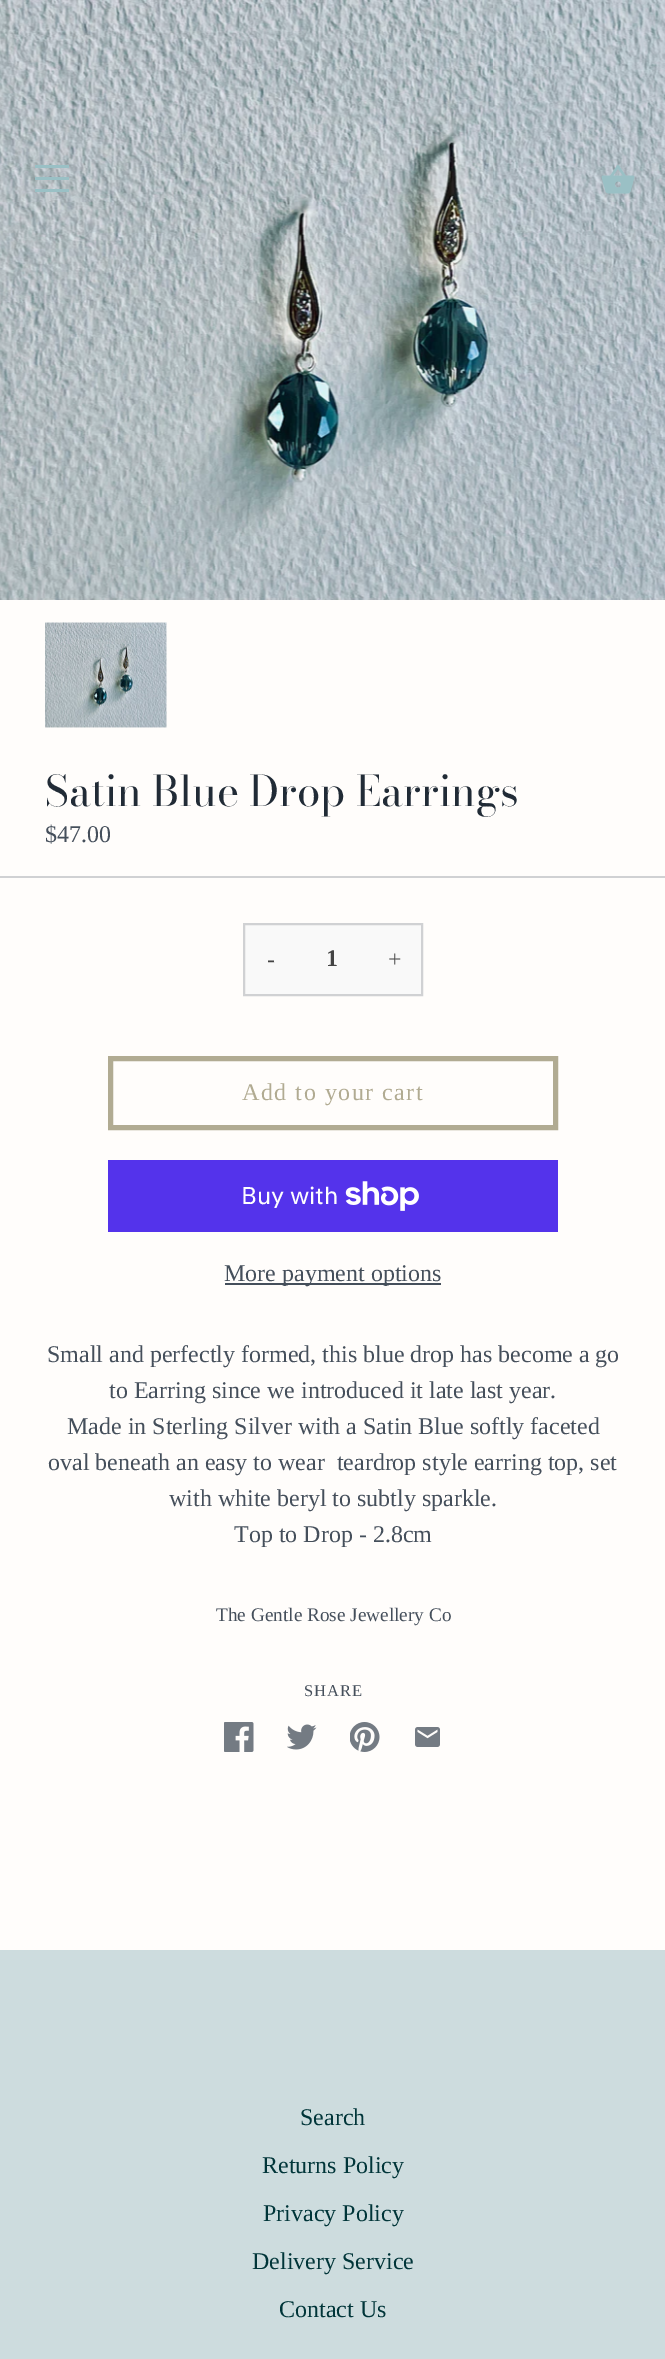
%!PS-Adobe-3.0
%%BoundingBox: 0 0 665 2359
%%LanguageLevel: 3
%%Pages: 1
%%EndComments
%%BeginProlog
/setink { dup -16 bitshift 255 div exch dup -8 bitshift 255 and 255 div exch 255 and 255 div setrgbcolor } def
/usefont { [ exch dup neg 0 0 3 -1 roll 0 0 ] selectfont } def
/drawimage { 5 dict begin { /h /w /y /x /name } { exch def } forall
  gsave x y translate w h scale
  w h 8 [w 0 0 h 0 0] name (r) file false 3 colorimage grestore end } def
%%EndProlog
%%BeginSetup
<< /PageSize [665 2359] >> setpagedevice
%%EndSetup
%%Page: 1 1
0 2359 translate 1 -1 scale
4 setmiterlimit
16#FFFDFB setink
0 0 665 2359 rectfill
(img2.raw) 0 0 665 600 drawimage
[
    [35 165 34 3 16#9AC0C5]
    [35 177 34 3 16#9AC0C5]
    [35 189 34 3 16#9AC0C5]
] { aload pop setink rectfill } forall
(img1.raw) 601 165 34 29 drawimage
16#D0D1D3 setink
0 876 665 2 rectfill
(img3.raw) 45 622 122 106 drawimage
/BodoniModa-Regular 42 usefont
16#212B36 setink
45 806 moveto (Satin Blue Drop Earrings) show
/LiberationSerif-Regular 24 usefont
16#454F5B setink
45 842 moveto ($47.00) show
16#F9F9F9 setink
244 924 moveto 422 924 lineto 422 995 lineto 244 995 lineto closepath gsave fill grestore
16#D0D1D3 setink
2 setlinewidth
stroke
16#444444 setink
267 967 moveto (-) show
/LiberationSerif-Bold 24 usefont
326 966 moveto 1 0 (1) ashow
/LiberationSerif-Regular 24 usefont
388 967 moveto (+) show
16#B1AB92 setink
5 setlinewidth
110.5 1058.5 445 69 rectstroke
242 1100 moveto 1.5 0 (Add to your cart) ashow
16#5433EB setink
108 1160 450 72 rectfill
/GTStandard-Regular 24 usefont
16#FFFFFF setink
241 1204 moveto (Buy with) show
(img4.raw) 345 1181 74 30 drawimage
16#454F5B setink
225 1283 216 2 rectfill
/LiberationSerif-Regular 24 usefont
[
    [(More payment options) 224 1281]
    [(Small and perfectly formed, this blue drop has become a go) 47 1362]
    [(to Earring since we introduced it late last year.) 109 1398]
    [(Made in Sterling Silver with a Satin Blue softly faceted) 67 1434]
    [(oval beneath an easy to wear  teardrop style earring top, set) 48 1470]
    [(with white beryl to subtly sparkle.) 169 1506]
    [(Top to Drop - 2.8cm) 234 1542]
] { aload pop moveto show } forall
/LiberationSerif-Regular 19.25 usefont
216 1621 moveto (The Gentle Rose Jewellery Co) show
/LiberationSerif-Regular 16.5 usefont
304 1696 moveto 1 0 (SHARE) ashow
(img5.raw) 224 1722 30 30 drawimage
(img6.raw) 287 1724 30 26 drawimage
(img7.raw) 350 1722 30 30 drawimage
(img8.raw) 415 1727 25 20 drawimage
16#CDDCDE setink
0 1950 665 409 rectfill
/LiberationSerif-Regular 24 usefont
16#003539 setink
[
    [(Search) 300 2125]
    [(Returns Policy) 262 2173]
    [(Privacy Policy) 263 2221]
    [(Delivery Service) 252 2269]
    [(Contact Us) 279 2317]
] { aload pop moveto show } forall
showpage
%%EOF
